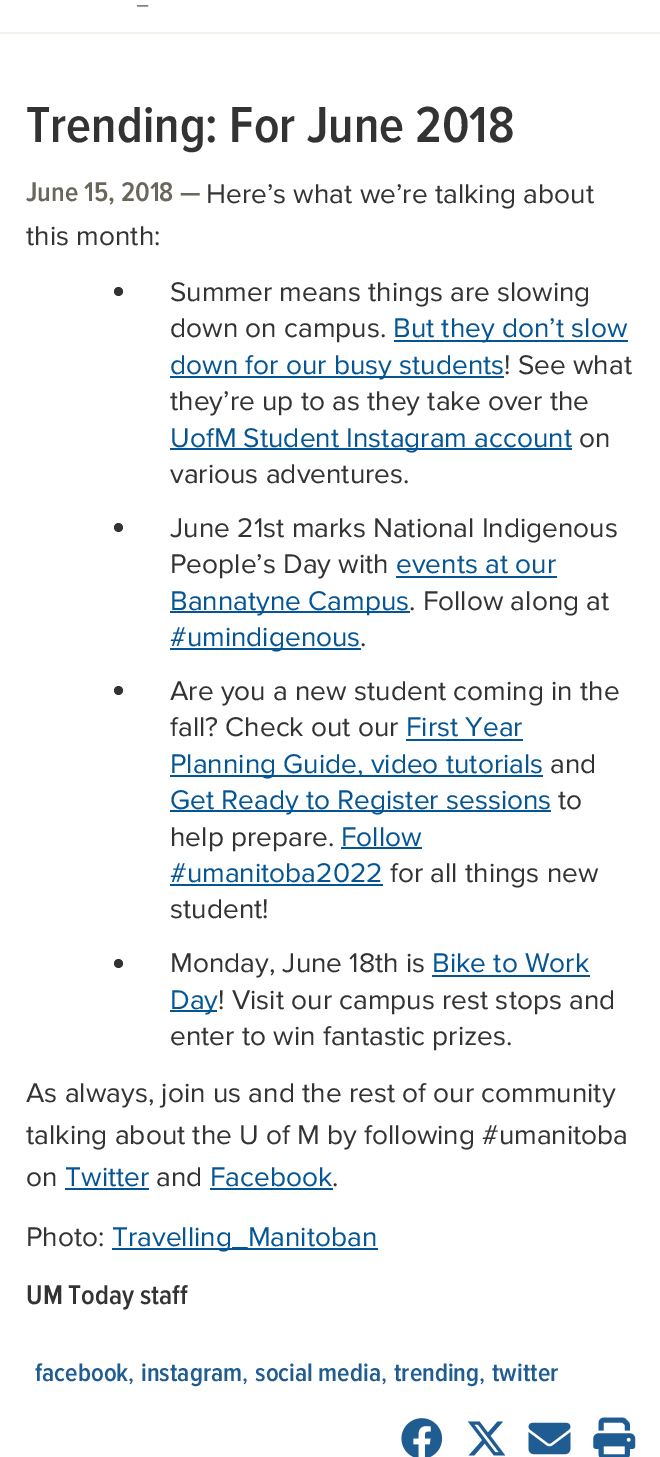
%!PS-Adobe-3.0
%%BoundingBox: 0 0 660 1457
%%LanguageLevel: 3
%%Pages: 1
%%EndComments
%%BeginProlog
/setink { dup -16 bitshift 255 div exch dup -8 bitshift 255 and 255 div exch 255 and 255 div setrgbcolor } def
/usefont { [ exch dup neg 0 0 3 -1 roll 0 0 ] selectfont } def
/disc { newpath 0 360 arc closepath } def
/drawimage { 5 dict begin { /h /w /y /x /name } { exch def } forall
  gsave x y translate w h scale
  w h 8 [w 0 0 h 0 0] name (r) file false 3 colorimage grestore end } def
%%EndProlog
%%BeginSetup
<< /PageSize [660 1457] >> setpagedevice
%%EndSetup
%%Page: 1 1
0 1457 translate 1 -1 scale
4 setmiterlimit
16#FFFFFF setink
0 0 660 1457 rectfill
16#F5F1ED setink
0 32 660 2 rectfill
/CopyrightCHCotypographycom-Light 24 usefont
16#58564B setink
137 4 moveto (_) show
/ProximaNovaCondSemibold-SemiBold 52.5 usefont
16#333333 setink
26 142 moveto (Trending: For June 2018) show
/ProximaNovaCondSemibold-SemiBold 28 usefont
16#69675B setink
26 201 moveto (June 15, 2018 —) show
/ProximaNova-Regular 28 usefont
16#333333 setink
206 203 moveto (Here’s what we’re talking about) show
26 245 moveto (this month:) show
118.5 291.5 4.5 disc fill
170 301 moveto (Summer means things are slowing) show
170 337 moveto (down on campus.) show
16#035595 setink
394 340 234 2 rectfill
393 337 moveto (But they don’t slow) show
170 376 334 2 rectfill
170 374 moveto (down for our busy students) show
16#333333 setink
504 374 moveto (! See what) show
170 410 moveto (they’re up to as they take over the) show
16#035595 setink
170 448 402 2 rectfill
170 447 moveto (UofM Student Instagram account) show
16#333333 setink
579 447 moveto (on) show
170 483 moveto (various adventures.) show
118.5 527.5 4.5 disc fill
170 537 moveto (June 21st marks National Indigenous) show
170 573 moveto (People’s Day with) show
16#035595 setink
396 573 moveto (events at our) show
396 576 161 2 rectfill
170 611 240 2 rectfill
170 610 moveto (Bannatyne Campus) show
16#333333 setink
409 610 moveto (. Follow along at) show
16#035595 setink
170 648 191 2 rectfill
170 646 moveto (#umindigenous) show
16#333333 setink
360 646 moveto (.) show
118.5 690.5 4.5 disc fill
170 700 moveto (Are you a new student coming in the) show
170 736 moveto (fall? Check out our) show
16#035595 setink
406 736 moveto (First Year) show
406 739 117 2 rectfill
170 775 373 2 rectfill
170 773 moveto (Planning Guide, video tutorials) show
16#333333 setink
550 773 moveto (and) show
16#035595 setink
170 810 381 2 rectfill
170 809 moveto (Get Ready to Register sessions) show
16#333333 setink
558 809 moveto (to) show
170 846 moveto (help prepare.) show
16#035595 setink
341 846 moveto (Follow) show
341 847 81 2 rectfill
170 882 moveto (#umanitoba2022) show
170 884 213 2 rectfill
16#333333 setink
390 882 moveto (for all things new) show
170 918 moveto (student!) show
118.5 963.5 4.5 disc fill
170 972 moveto (Monday, June 18th is) show
16#035595 setink
432 972 moveto (Bike to Work) show
432 975 158 2 rectfill
170 1010 47 2 rectfill
170 1009 moveto (Day) show
16#333333 setink
[
    [(! Visit our campus rest stops and) 218 1009]
    [(enter to win fantastic prizes.) 170 1045]
    [(As always, join us and the rest of our community) 26 1102]
    [(talking about the U of M by following #umanitoba) 26 1144]
    [(on) 26 1186]
] { aload pop moveto show } forall
16#035595 setink
65 1186 moveto (Twitter) show
65 1188 84 2 rectfill
16#333333 setink
156 1186 moveto (and) show
16#035595 setink
210 1186 moveto (Facebook) show
210 1188 123 2 rectfill
16#333333 setink
332 1186 moveto (.) show
26 1246 moveto (Photo:) show
16#035595 setink
112 1248 266 2 rectfill
112 1246 moveto (Travelling_Manitoban) show
/ProximaNovaCondSemibold-SemiBold 28 usefont
16#333333 setink
26 1304 moveto (UM Today staff) show
/ProximaNovaCondSemibold-SemiBold 26.25 usefont
16#1E5C91 setink
35 1381 moveto (facebook) show
/ProximaNova-Regular 26.25 usefont
128 1381 moveto (,) show
/ProximaNovaCondSemibold-SemiBold 26.25 usefont
141 1381 moveto (instagram) show
/ProximaNova-Regular 26.25 usefont
242 1381 moveto (,) show
/ProximaNovaCondSemibold-SemiBold 26.25 usefont
255 1381 moveto (social media) show
/ProximaNova-Regular 26.25 usefont
381 1381 moveto (,) show
/ProximaNovaCondSemibold-SemiBold 26.25 usefont
394 1381 moveto (trending) show
/ProximaNova-Regular 26.25 usefont
479 1381 moveto (,) show
/ProximaNovaCondSemibold-SemiBold 26.25 usefont
492 1381 moveto (twitter) show
(img1.raw) 401 1418 42 39 drawimage
(img2.raw) 467 1421 39 35 drawimage
(img3.raw) 528 1422 43 33 drawimage
(img4.raw) 593 1417 43 40 drawimage
showpage
%%EOF
